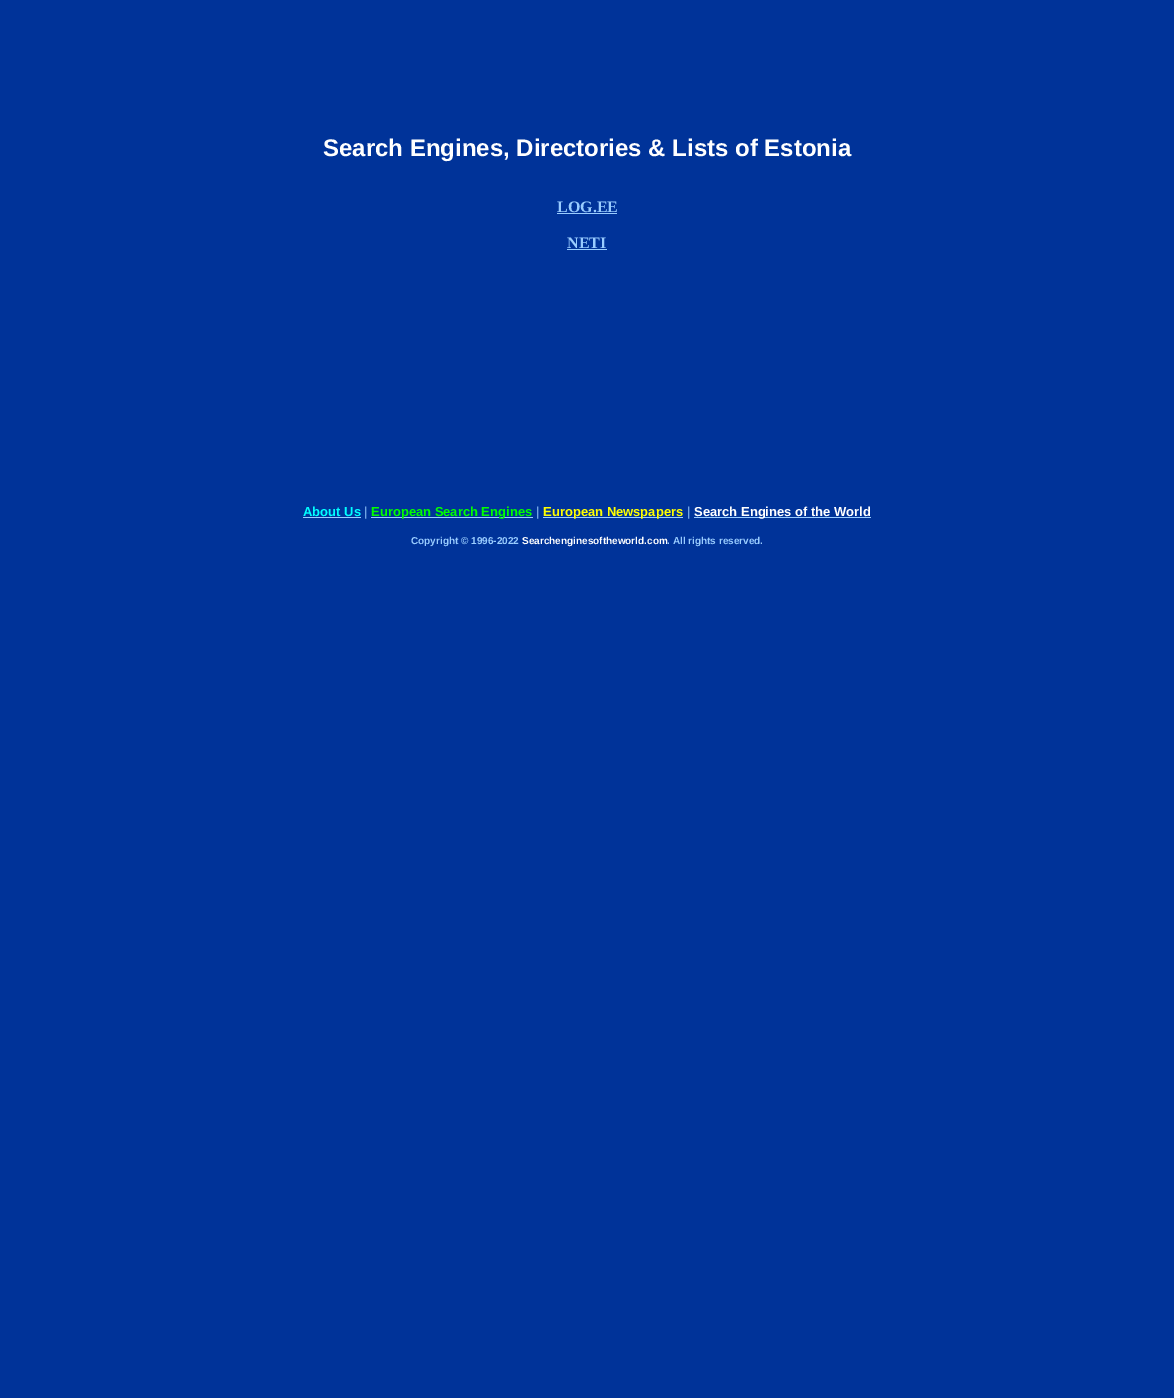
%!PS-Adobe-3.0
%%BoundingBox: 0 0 1174 1398
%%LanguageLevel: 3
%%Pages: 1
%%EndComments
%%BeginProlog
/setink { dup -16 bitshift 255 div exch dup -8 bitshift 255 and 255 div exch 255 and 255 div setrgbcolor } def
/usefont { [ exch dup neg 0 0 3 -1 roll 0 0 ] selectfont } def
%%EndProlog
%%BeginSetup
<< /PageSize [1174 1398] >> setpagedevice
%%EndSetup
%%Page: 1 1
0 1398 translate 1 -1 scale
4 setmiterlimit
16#003399 setink
0 0 1174 1398 rectfill
/LiberationSans-Bold 24 usefont
16#FFFFFF setink
323 156 moveto (Search Engines, Directories & Lists of Estonia) show
/LiberationSerif-Bold 16 usefont
16#99CCFF setink
557 212 moveto (LOG.EE) show
557 213 60 1 rectfill
567 248 moveto (NETI) show
567 249 40 1 rectfill
/LiberationSans-Bold 13 usefont
16#00FFFF setink
303 516 moveto (About Us) show
16#99CCFF setink
303 517 58 1 rectfill
/LiberationSans-Regular 13 usefont
364 516 moveto (|) show
371 517 162 1 rectfill
/LiberationSans-Bold 13 usefont
16#00FF00 setink
371 516 moveto (European Search Engines) show
/LiberationSans-Regular 13 usefont
16#99CCFF setink
536 516 moveto (|) show
543 517 140 1 rectfill
/LiberationSans-Bold 13 usefont
16#FFFF00 setink
543 516 moveto (European Newspapers) show
/LiberationSans-Regular 13 usefont
16#99CCFF setink
687 516 moveto (|) show
694 517 177 1 rectfill
/LiberationSans-Bold 13 usefont
16#FFFFFF setink
694 516 moveto (Search Engines of the World) show
/LiberationSans-Bold 10 usefont
16#99CCFF setink
411 544 moveto (Copyright © 1996-2022) show
16#FFFFFF setink
522 544 moveto (Searchenginesoftheworld.com) show
16#99CCFF setink
667 544 moveto (. All rights reserved.) show
showpage
%%EOF
